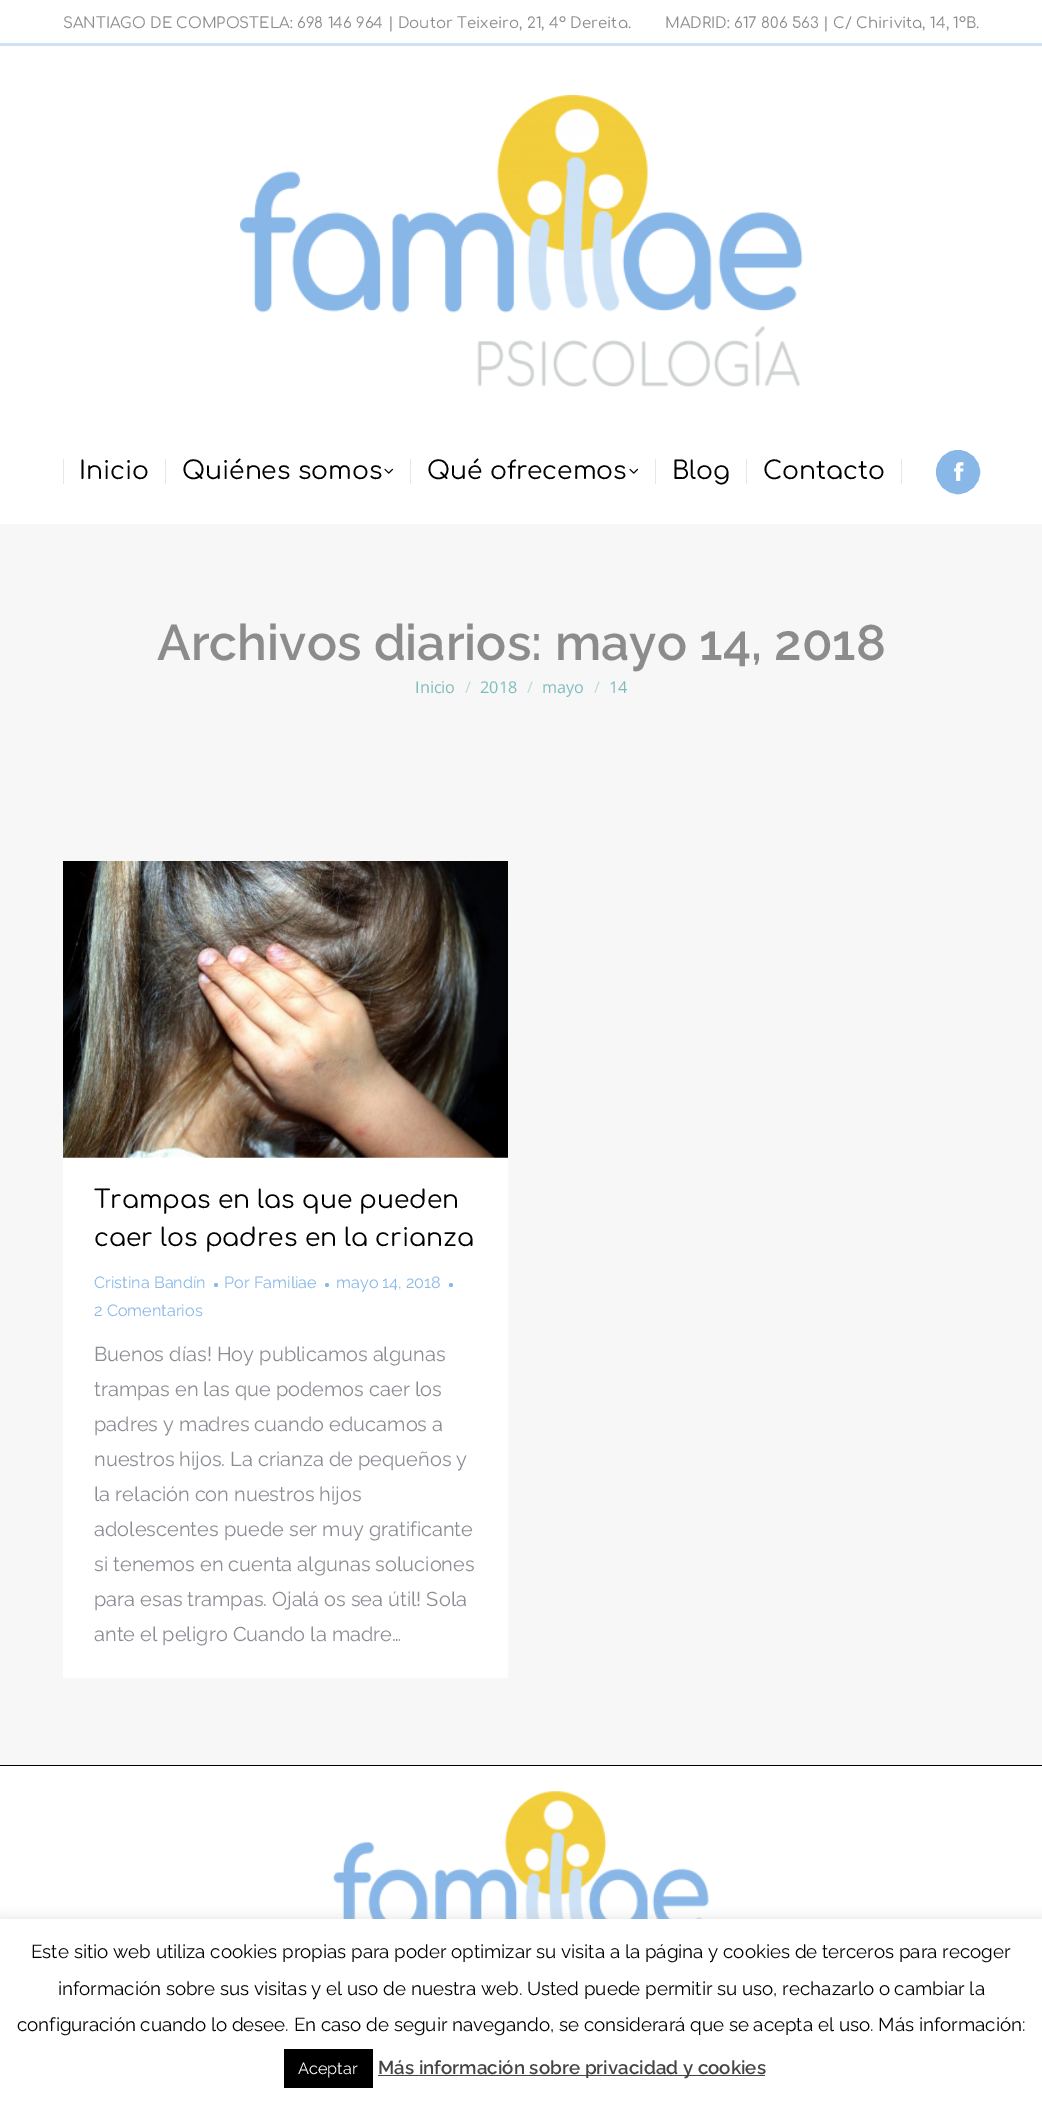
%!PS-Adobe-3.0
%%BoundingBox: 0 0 1042 2102
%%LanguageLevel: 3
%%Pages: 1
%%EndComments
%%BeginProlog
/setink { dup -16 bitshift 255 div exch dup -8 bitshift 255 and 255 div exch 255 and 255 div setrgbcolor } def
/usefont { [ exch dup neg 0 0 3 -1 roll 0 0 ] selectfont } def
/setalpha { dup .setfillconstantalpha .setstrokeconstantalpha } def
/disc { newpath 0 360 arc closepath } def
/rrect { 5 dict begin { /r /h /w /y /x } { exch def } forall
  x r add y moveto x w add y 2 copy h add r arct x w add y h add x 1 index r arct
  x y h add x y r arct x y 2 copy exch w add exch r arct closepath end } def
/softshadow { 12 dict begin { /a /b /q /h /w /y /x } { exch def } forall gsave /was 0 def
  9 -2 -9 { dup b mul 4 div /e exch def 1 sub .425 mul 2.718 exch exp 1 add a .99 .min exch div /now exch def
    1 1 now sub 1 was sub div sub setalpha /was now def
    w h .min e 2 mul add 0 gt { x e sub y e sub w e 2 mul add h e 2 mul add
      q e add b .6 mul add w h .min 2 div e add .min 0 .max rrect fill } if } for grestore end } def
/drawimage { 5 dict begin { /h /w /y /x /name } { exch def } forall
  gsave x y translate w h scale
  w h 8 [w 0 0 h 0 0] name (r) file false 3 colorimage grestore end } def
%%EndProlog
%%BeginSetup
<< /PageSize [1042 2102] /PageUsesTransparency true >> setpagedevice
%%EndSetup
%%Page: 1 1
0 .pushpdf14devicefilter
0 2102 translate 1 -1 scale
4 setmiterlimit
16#F7F7F7 setink
0 0 1042 2102 rectfill
16#FFFFFF setink
0 0 1042 524 rectfill
/Comfortaa-Regular 15 usefont
16#8C8C8C setink
63 28 moveto (SANTIAGO DE COMPOSTELA: 698 146 964 | Doutor Teixeiro, 21, 4º Dereita.) show
665 28 moveto (MADRID: 617 806 563 | C/ Chirivita, 14, 1ºB.) show
16#CEE2F6 setink
0 43 1042 3 rectfill
(img1.raw) 240 95 563 292 drawimage
16#E6E6E6 setink
63 459 1 25 rectfill
/Comfortaa-Regular 25 usefont
16#000000 setink
79 479 moveto (Inicio) show
16#E6E6E6 setink
165 459 1 25 rectfill
16#000000 setink
182 479 moveto (Quiénes somos) show
(img2.raw) 384 468 10 6 drawimage
16#E6E6E6 setink
410 459 1 25 rectfill
16#000000 setink
427 479 moveto (Qué ofrecemos) show
(img2.raw) 629 468 10 6 drawimage
16#E6E6E6 setink
655 459 1 25 rectfill
16#000000 setink
672 479 moveto (Blog) show
16#E6E6E6 setink
746 459 1 25 rectfill
16#000000 setink
763 479 moveto (Contacto) show
16#E6E6E6 setink
901 459 1 25 rectfill
16#88B7E8 setink
958 472 20.5 disc gsave fill grestore
3 setlinewidth
stroke
(img3.raw) 954 462 10 19 drawimage
/Raleway-SemiBold 50 usefont
16#8C8C8C setink
157 660 moveto (Archivos diarios: mayo 14, 2018) show
/OpenSans-Regular 16.25 usefont
16#7DBCBE setink
415 693 moveto (Inicio) show
16#BADADB setink
465 693 moveto (/) show
16#7DBCBE setink
480 693 moveto (2018) show
16#BADADB setink
527 693 moveto (/) show
16#7DBCBE setink
542 693 moveto (mayo) show
16#BADADB setink
594 693 moveto (/) show
16#7DBCBE setink
609 693 moveto (14) show
16#FFFFFF setink
63 1157 445 521 rectfill
(img4.raw) 63 861 445 297 drawimage
/Comfortaa-Regular 25 usefont
16#000000 setink
94 1208 moveto (Trampas en las que pueden) show
94 1246 moveto (caer los padres en la crianza) show
/Raleway-Thin 16.25 usefont
16#88B7E8 setink
94 1288 moveto (Cristina Bandín) show
216 1285 2 disc fill
224 1288 moveto (Por Familiae) show
327 1285 2 disc fill
336 1288 moveto (mayo 14, 2018) show
451 1285 2 disc fill
94 1316 moveto (2 Comentarios) show
/Raleway-Thin 20 usefont
16#8B8D94 setink
[
    [(Buenos días! Hoy publicamos algunas) 94 1361]
    [(trampas en las que podemos caer los) 94 1396]
    [(padres y madres cuando educamos a) 94 1431]
    [(nuestros hijos. La crianza de pequeños y) 94 1466]
    [(la relación con nuestros hijos) 94 1501]
    [(adolescentes puede ser muy gratificante) 94 1536]
    [(si tenemos en cuenta algunas soluciones) 94 1571]
    [(para esas trampas. Ojalá os sea útil! Sola) 94 1606]
    [(ante el peligro Cuando la madre…) 94 1641]
] { aload pop moveto show } forall
16#000000 setink
0 1765 1042 1 rectfill
16#FFFFFF setink
0 1766 1042 153 rectfill
(img5.raw) 333 1791 376 128 drawimage
16#ACABAB setink
0 1918 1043 183 0 6 0.3 softshadow
16#FFFFFF setink
0 1919 1042 183 rectfill
/Raleway-Thin 18.75 usefont
16#000000 setink
[
    [(Este sitio web utiliza cookies propias para poder optimizar su visita a la página y cookies de terceros para recoger) 31 1958]
    [(información sobre sus visitas y el uso de nuestra web. Usted puede permitir su uso, rechazarlo o cambiar la) 58 1995]
    [(configuración cuando lo desee. En caso de seguir navegando, se considerará que se acepta el uso. Más información:) 17 2031]
] { aload pop moveto show } forall
284 2049 89 39 rectfill
/Raleway-Thin 16.25 usefont
16#FFFFFF setink
298 2074 moveto (Aceptar) show
16#444444 setink
378 2075 387 1 rectfill
/Raleway-SemiBold 18.75 usefont
378 2074 moveto (Más información sobre privacidad y cookies) show
.poppdf14devicefilter showpage
%%EOF
